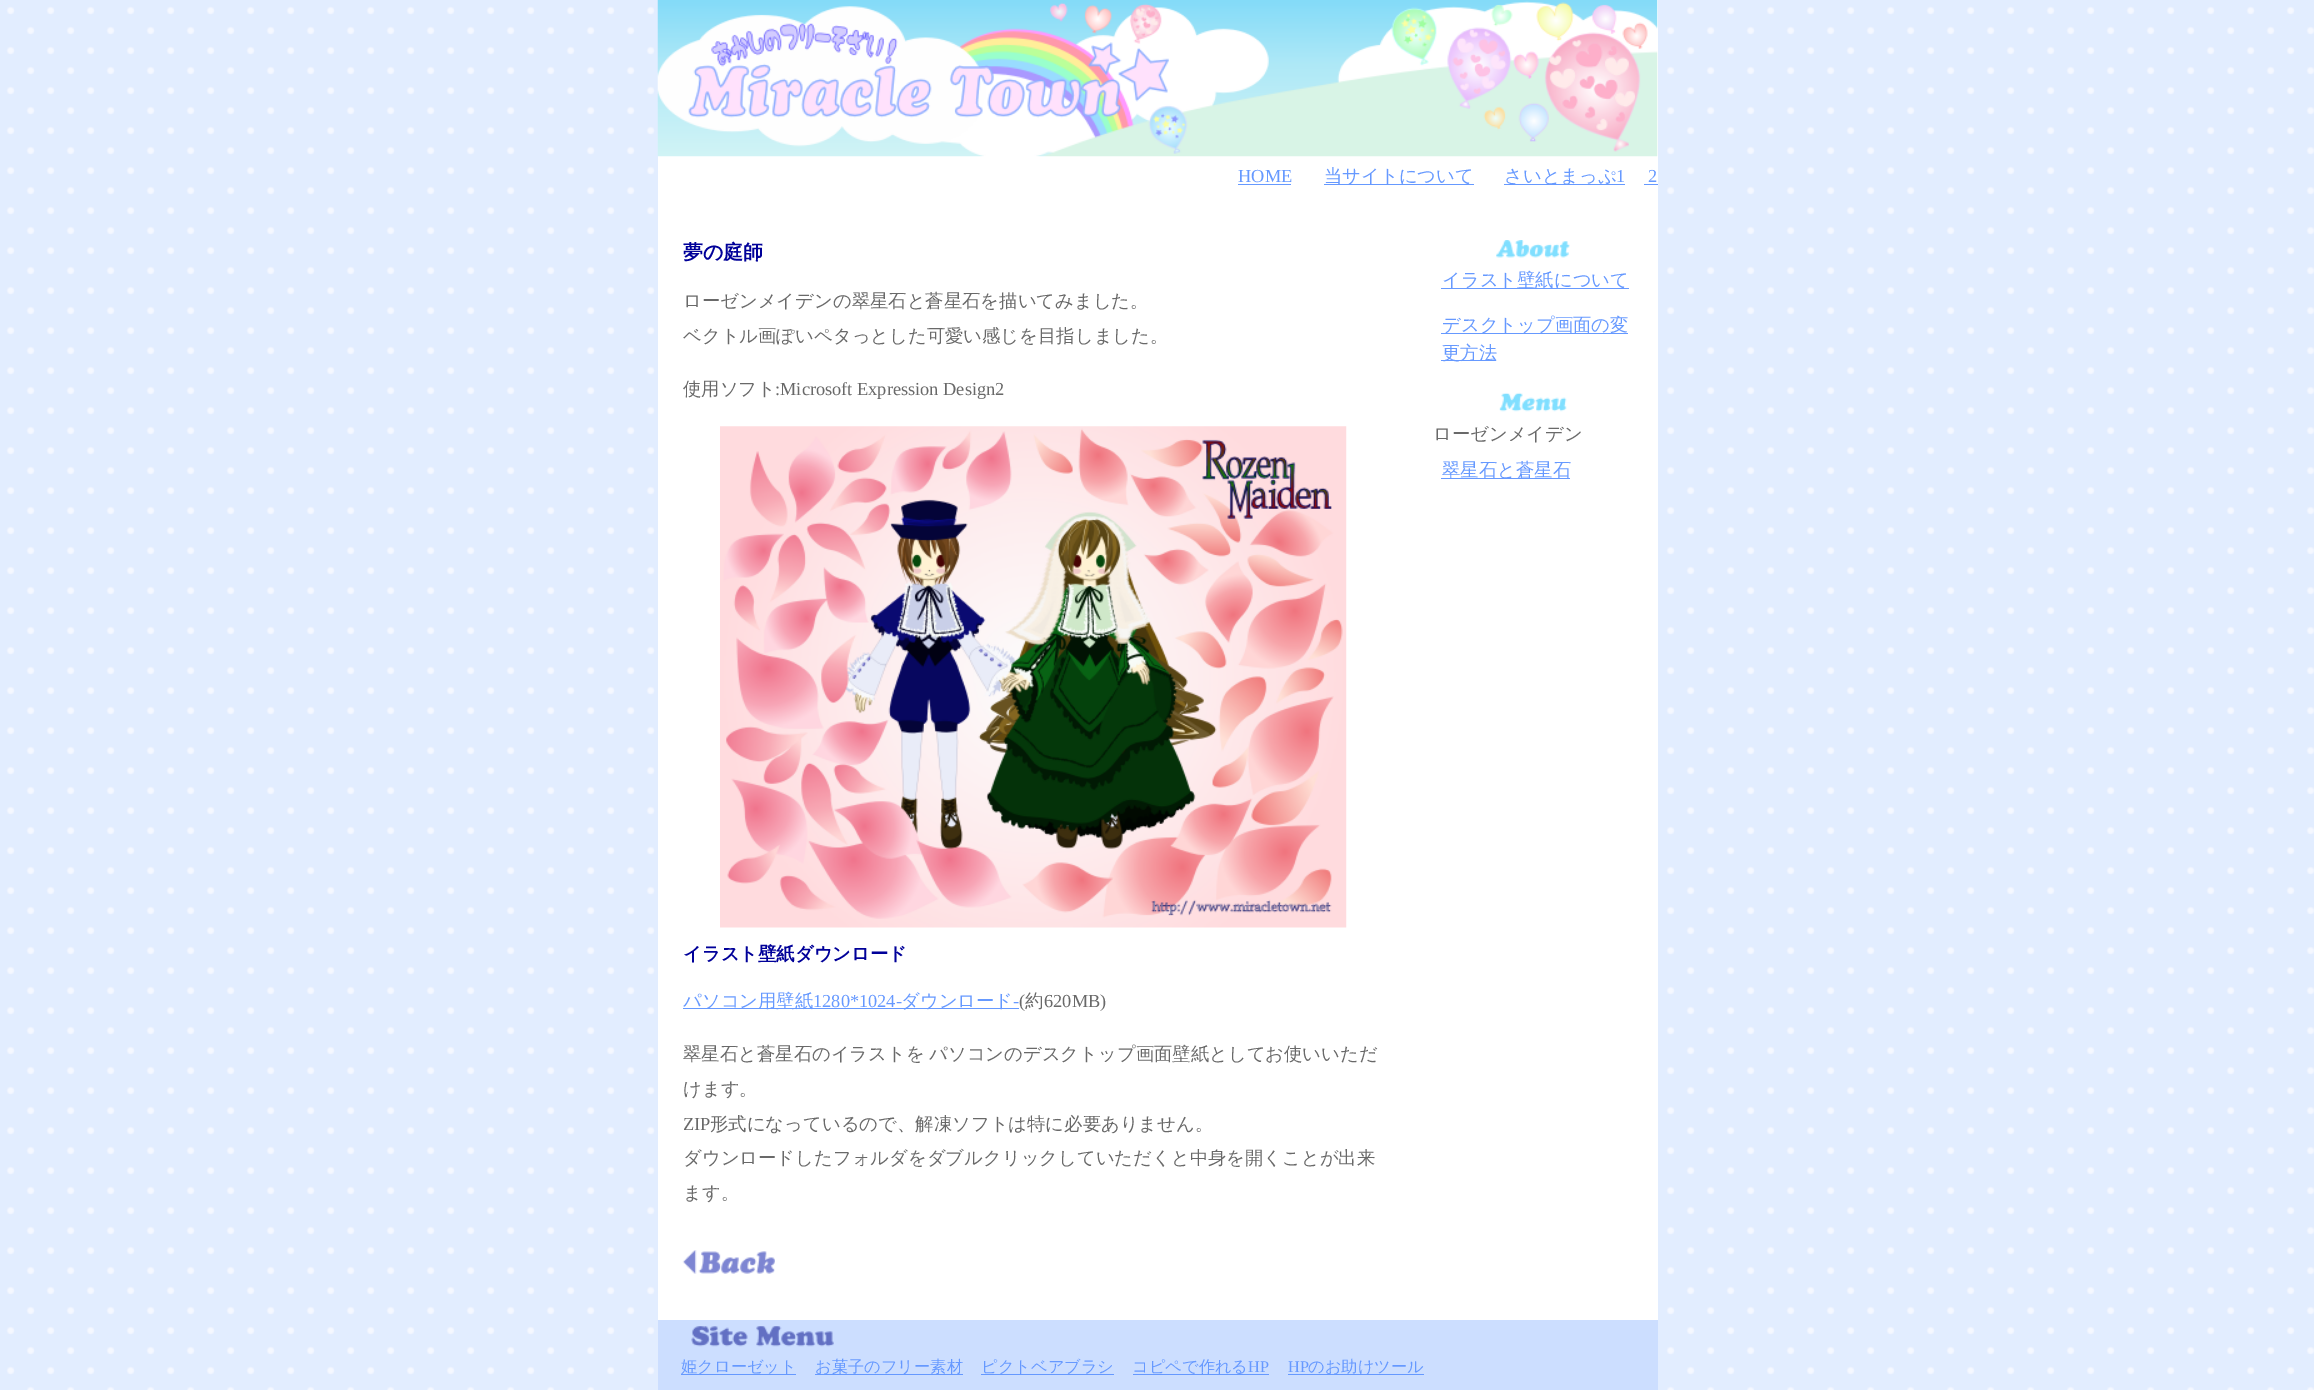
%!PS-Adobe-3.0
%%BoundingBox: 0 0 2314 1390
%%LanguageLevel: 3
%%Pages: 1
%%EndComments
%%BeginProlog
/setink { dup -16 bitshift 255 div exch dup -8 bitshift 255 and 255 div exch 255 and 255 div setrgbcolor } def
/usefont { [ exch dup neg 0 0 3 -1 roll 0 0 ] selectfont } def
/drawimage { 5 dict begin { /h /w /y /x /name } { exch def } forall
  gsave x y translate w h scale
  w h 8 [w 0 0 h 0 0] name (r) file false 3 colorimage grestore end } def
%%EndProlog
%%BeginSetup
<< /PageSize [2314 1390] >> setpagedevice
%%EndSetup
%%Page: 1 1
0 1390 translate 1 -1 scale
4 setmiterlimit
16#FFFFFF setink
0 0 2314 1390 rectfill
(img1.raw) 0 0 2314 1390 drawimage
658 0 1000 1320 rectfill
(img2.raw) 657 0 1001 157 drawimage
(img3.raw) 688 23 481 95 drawimage
/LiberationSerif-Regular 18.35 usefont
16#6699FF setink
1238 182 moveto (HOME) show
1238 184 53 1 rectfill
1324 184 150 1 rectfill
/WenQuanYiZenHei-Medium 18.35 usefont
1324 182 moveto (当サイトについて) show
1504 184 121 1 rectfill
1504 182 moveto (さいとまっぷ) show
/LiberationSerif-Regular 18.35 usefont
1616 182 moveto (1) show
1648 182 moveto (2) show
1644 184 14 1 rectfill
/WenQuanYiZenHei-Bold 20 usefont
16#000099 setink
683 259 moveto (夢の庭師) show
/WenQuanYiZenHei-Medium 18.35 usefont
16#696969 setink
[
    [(ローゼンメイデンの翠星石と蒼星石を描いてみました。) 683 307]
    [(ベクトル画ぽいペタっとした可愛い感じを目指しました。) 683 342]
    [(使用ソフト) 683 395]
] { aload pop moveto show } forall
/LiberationSerif-Regular 18.35 usefont
775 395 moveto (:Microsoft Expression Design2) show
(img4.raw) 720 426 627 502 drawimage
/WenQuanYiZenHei-Bold 18.35 usefont
16#000099 setink
683 960 moveto (イラスト壁紙ダウンロード) show
16#6699FF setink
683 1008 336 1 rectfill
/WenQuanYiZenHei-Medium 18.35 usefont
683 1007 moveto (パソコン用壁紙) show
/LiberationSerif-Regular 18.35 usefont
813 1007 moveto (1280*1024-) show
/WenQuanYiZenHei-Medium 18.35 usefont
901 1007 moveto (ダウンロード) show
/LiberationSerif-Regular 18.35 usefont
1013 1007 moveto (-) show
16#696969 setink
1019 1007 moveto (\() show
/WenQuanYiZenHei-Medium 18.35 usefont
1025 1007 moveto (約) show
/LiberationSerif-Regular 18.35 usefont
1044 1007 moveto (620MB\)) show
/WenQuanYiZenHei-Medium 18.35 usefont
683 1060 moveto -1 0 32 (翠星石と蒼星石のイラストを パソコンのデスクトップ画面壁紙としてお使いいただ) widthshow
683 1095 moveto (けます。) show
/LiberationSerif-Regular 18.35 usefont
683 1130 moveto (ZIP) show
/WenQuanYiZenHei-Medium 18.35 usefont
[
    [(形式になっているので、解凍ソフトは特に必要ありません。) 710 1130]
    [(ダウンロードしたフォルダをダブルクリックしていただくと中身を開くことが出来) 683 1164]
    [(ます。) 683 1199]
] { aload pop moveto show } forall
(img5.raw) 682 1250 93 24 drawimage
(img6.raw) 1496 240 74 18 drawimage
16#6699FF setink
1441 288 188 1 rectfill
1442 286 moveto (イラスト壁紙について) show
1441 333 187 1 rectfill
1442 331 moveto (デスクトップ画面の変) show
1441 360 55 1 rectfill
1442 359 moveto (更方法) show
(img7.raw) 1499 392 68 20 drawimage
16#696969 setink
1433 440 moveto (ローゼンメイデン) show
16#6699FF setink
1441 478 129 1 rectfill
1442 476 moveto (翠星石と蒼星石) show
16#CCDEFF setink
658 1320 1000 70 rectfill
(img8.raw) 691 1326 143 21 drawimage
16#6699FF setink
681 1374 115 1 rectfill
/WenQuanYiZenHei-Medium 16.25 usefont
681 1372 moveto (姫クローゼット) show
815 1374 148 1 rectfill
815 1372 moveto (お菓子のフリー素材) show
981 1374 133 1 rectfill
981 1372 moveto (ピクトベアブラシ) show
1133 1374 136 1 rectfill
1132 1372 moveto (コピペで作れる) show
/LiberationSerif-Regular 16.25 usefont
1248 1372 moveto (HP) show
1288 1372 moveto (HP) show
1288 1374 136 1 rectfill
/WenQuanYiZenHei-Medium 16.25 usefont
1308 1372 moveto (のお助けツール) show
showpage
%%EOF
